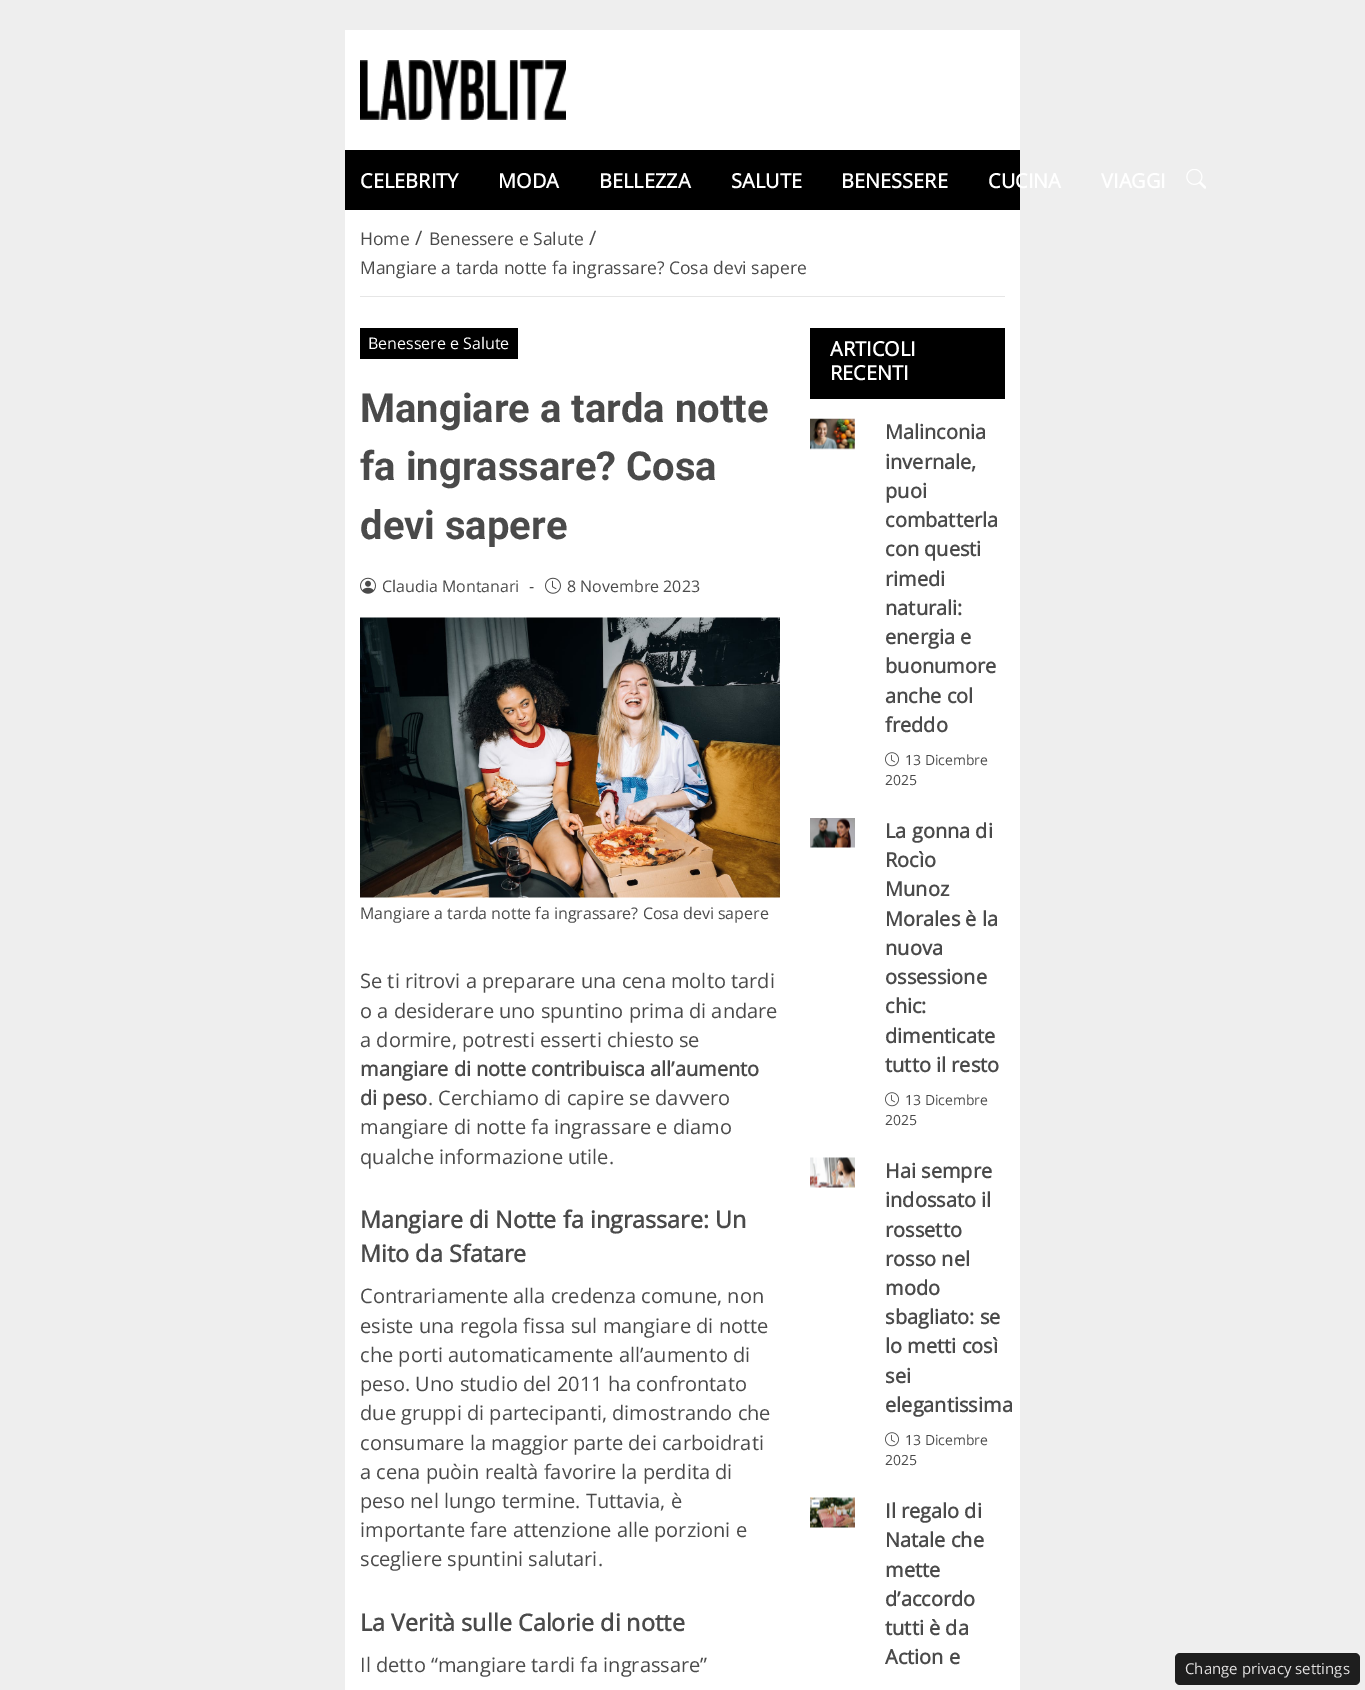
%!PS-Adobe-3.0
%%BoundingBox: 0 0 1365 1690
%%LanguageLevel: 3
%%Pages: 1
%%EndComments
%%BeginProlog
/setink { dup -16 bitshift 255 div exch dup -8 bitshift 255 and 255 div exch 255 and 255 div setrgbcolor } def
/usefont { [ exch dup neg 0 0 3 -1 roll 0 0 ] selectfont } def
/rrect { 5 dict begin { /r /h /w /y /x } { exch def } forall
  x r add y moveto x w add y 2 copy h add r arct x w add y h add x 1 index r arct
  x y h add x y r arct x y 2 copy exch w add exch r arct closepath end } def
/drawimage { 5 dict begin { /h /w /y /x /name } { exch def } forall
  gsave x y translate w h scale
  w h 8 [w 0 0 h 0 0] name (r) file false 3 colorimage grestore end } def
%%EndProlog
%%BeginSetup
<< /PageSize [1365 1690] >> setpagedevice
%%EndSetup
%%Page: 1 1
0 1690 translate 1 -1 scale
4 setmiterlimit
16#EEEEEE setink
0 0 1365 1690 rectfill
16#FFFFFF setink
345 30 675 120 rectfill
(img1.raw) 360 60 206 60 drawimage
16#000000 setink
345 150 675 60 rectfill
/OpenSans-Bold 20 usefont
16#FFFFFF setink
[
    [(CELEBRITY) 360 188]
    [(MODA) 498 188]
    [(BELLEZZA) 599 188]
    [(SALUTE) 731 188]
    [(BENESSERE) 841 188]
    [(CUCINA) 988 188]
    [(VIAGGI) 1101 188]
] { aload pop moveto show } forall
(img2.raw) 1186 169 20 20 drawimage
345 210 675 1480 rectfill
16#E6E6E6 setink
360 296 645 1 rectfill
/OpenSans-Regular 17.5 usefont
16#4A4A4A setink
360 245 moveto (Home) show
/OpenSans-Regular 20 usefont
415 245 moveto (/) show
/OpenSans-Regular 17.5 usefont
429 245 moveto (Benessere e Salute) show
/OpenSans-Regular 20 usefont
589 245 moveto (/) show
/OpenSans-Regular 17.5 usefont
360 274 moveto (Mangiare a tarda notte fa ingrassare? Cosa devi sapere) show
16#000000 setink
360 328 158 31 rectfill
/OpenSans-Regular 16 usefont
16#FFFFFF setink
368 349 moveto (Benessere e Salute) show
/Roboto-Bold 40 usefont
16#4A4A4A setink
[
    [(Mangiare a tarda notte) 360 422]
    [(fa ingrassare? Cosa) 360 480]
    [(devi sapere) 360 539]
] { aload pop moveto show } forall
(img3.raw) 360 577 16 17 drawimage
/OpenSans-Regular 16 usefont
382 592 moveto (Claudia Montanari) show
529 592 moveto (-) show
(img4.raw) 545 577 16 17 drawimage
567 592 moveto (8 Novembre 2023) show
(img5.raw) 360 617 420 281 drawimage
360 919 moveto (Mangiare a tarda notte fa ingrassare? Cosa devi sapere) show
/OpenSans-Regular 20 usefont
[
    [(Se ti ritrovi a preparare una cena molto tardi) 360 988]
    [(o a desiderare uno spuntino prima di andare) 360 1018]
    [(a dormire, potresti esserti chiesto se) 360 1047]
] { aload pop moveto show } forall
/OpenSans-Bold 20 usefont
360 1076 moveto (mangiare di notte contribuisca all’aumento) show
360 1105 moveto (di peso) show
/OpenSans-Regular 20 usefont
[
    [(. Cerchiamo di capire se davvero) 428 1105]
    [(mangiare di notte fa ingrassare e diamo) 360 1134]
    [(qualche informazione utile.) 360 1164]
] { aload pop moveto show } forall
/OpenSans-Bold 23.4 usefont
360 1228 moveto (Mangiare di Notte fa ingrassare: Un) show
360 1262 moveto (Mito da Sfatare) show
/OpenSans-Regular 20 usefont
[
    [(Contrariamente alla credenza comune, non) 360 1303]
    [(esiste una regola fissa sul mangiare di notte) 360 1333]
    [(che porti automaticamente all’aumento di) 360 1362]
    [(peso. Uno studio del 2011 ha confrontato) 360 1391]
    [(due gruppi di partecipanti, dimostrando che) 360 1420]
    [(consumare la maggior parte dei carboidrati) 360 1450]
    [(a cena puòin realtà favorire la perdita di) 360 1479]
    [(peso nel lungo termine. Tuttavia, è) 360 1508]
    [(importante fare attenzione alle porzioni e) 360 1537]
    [(scegliere spuntini salutari.) 360 1566]
] { aload pop moveto show } forall
/OpenSans-Bold 23.4 usefont
360 1631 moveto (La Verità sulle Calorie di notte) show
/OpenSans-Regular 20 usefont
360 1672 moveto (Il detto “mangiare tardi fa ingrassare”) show
16#000000 setink
810 328 195 71 rectfill
/OpenSans-Bold 20 usefont
16#FFFFFF setink
830 356 moveto (ARTICOLI) show
830 380 moveto (RECENTI) show
(img6.raw) 810 418 45 32 drawimage
16#4A4A4A setink
[
    [(Malinconia) 885 439]
    [(invernale,) 885 469]
    [(puoi) 885 498]
    [(combatterla) 885 527]
    [(con questi) 885 556]
    [(rimedi) 885 586]
    [(naturali:) 885 615]
    [(energia e) 885 644]
    [(buonumore) 885 673]
    [(anche col) 885 703]
    [(freddo) 885 732]
] { aload pop moveto show } forall
(img7.raw) 885 752 14 15 drawimage
/OpenSans-Regular 14 usefont
905 765 moveto (13 Dicembre) show
885 785 moveto (2025) show
(img8.raw) 810 818 45 30 drawimage
/OpenSans-Bold 20 usefont
[
    [(La gonna di) 885 838]
    [(Rocìo) 885 867]
    [(Munoz) 885 896]
    [(Morales è la) 885 926]
    [(nuova) 885 955]
    [(ossessione) 885 984]
    [(chic:) 885 1013]
    [(dimenticate) 885 1043]
    [(tutto il resto) 885 1072]
] { aload pop moveto show } forall
(img7.raw) 885 1092 14 15 drawimage
/OpenSans-Regular 14 usefont
905 1105 moveto (13 Dicembre) show
885 1125 moveto (2025) show
(img9.raw) 810 1157 45 31 drawimage
/OpenSans-Bold 20 usefont
[
    [(Hai sempre) 885 1178]
    [(indossato il) 885 1207]
    [(rossetto) 885 1237]
    [(rosso nel) 885 1266]
    [(modo) 885 1295]
    [(sbagliato: se) 885 1324]
    [(lo metti così) 885 1353]
    [(sei) 885 1383]
    [(elegantissima) 885 1412]
] { aload pop moveto show } forall
(img7.raw) 885 1432 14 15 drawimage
/OpenSans-Regular 14 usefont
905 1445 moveto (13 Dicembre) show
885 1465 moveto (2025) show
(img10.raw) 810 1497 45 31 drawimage
/OpenSans-Bold 20 usefont
[
    [(Il regalo di) 885 1518]
    [(Natale che) 885 1547]
    [(mette) 885 1577]
    [(d’accordo) 885 1606]
    [(tutti è da) 885 1635]
    [(Action e) 885 1664]
] { aload pop moveto show } forall
16#1E1E1E setink
1175 1653 185 32 5 rrect fill
/OpenSans-Regular 15 usefont
16#E3E1E1 setink
1185 1674 moveto (Change privacy settings) show
showpage
%%EOF
